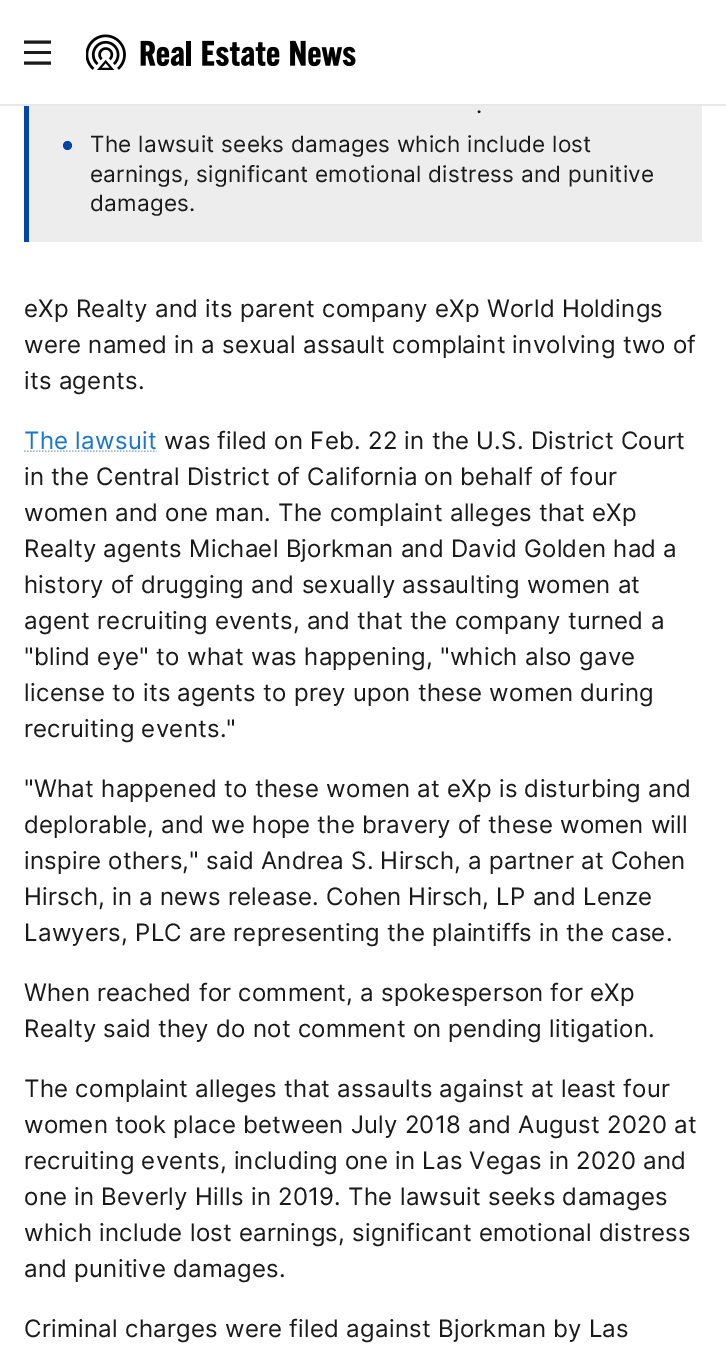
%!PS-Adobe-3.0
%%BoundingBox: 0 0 726 1352
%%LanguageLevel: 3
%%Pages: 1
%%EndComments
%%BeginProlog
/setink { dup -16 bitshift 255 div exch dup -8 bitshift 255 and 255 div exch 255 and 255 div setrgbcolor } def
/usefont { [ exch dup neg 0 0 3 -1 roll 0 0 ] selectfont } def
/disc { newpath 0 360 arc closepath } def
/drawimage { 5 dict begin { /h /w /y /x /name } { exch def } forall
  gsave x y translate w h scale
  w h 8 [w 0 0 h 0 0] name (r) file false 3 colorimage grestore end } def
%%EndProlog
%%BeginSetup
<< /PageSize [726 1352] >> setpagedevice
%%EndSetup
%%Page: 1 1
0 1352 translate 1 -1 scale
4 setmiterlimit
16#FFFFFF setink
0 0 726 1352 rectfill
16#E8E8E8 setink
0 104 726 2 rectfill
16#1A1A1A setink
3.1 setlinewidth
51 42 moveto 24 42 lineto stroke
24 51 27 3 rectfill
51 63 moveto 24 63 lineto stroke
(img1.raw) 86 34 270 36 drawimage
16#EDEDED setink
29 106 673 136 rectfill
16#0045A7 setink
24 106 5 136 rectfill
/Inter-Regular 22.5 usefont
16#1A1A1A setink
476 113 moveto 0.25 0 (.) ashow
16#0045A7 setink
67.5 145.5 4.5 disc fill
16#1A1A1A setink
90 152 moveto 0.25 0 (The lawsuit seeks damages which include lost) ashow
90 182 moveto 0.25 0 (earnings, significant emotional distress and punitive) ashow
90 211 moveto 0.25 0 (damages.) ashow
/Inter-Regular 24 usefont
24 317 moveto 0.25 0 (eXp Realty and its parent company eXp World Holdings) ashow
24 353 moveto 0.25 0 (were named in a sexual assault complaint involving two of) ashow
24 389 moveto 0.25 0 (its agents.) ashow
16#1876D2 setink
24 449 moveto 0.25 0 (The lawsuit) ashow
16#99B7D1 setink
1.5 setlinewidth
[1.5 1.5] 0 setdash
24 451 moveto 156.5 451 lineto stroke
16#1A1A1A setink
164 449 moveto 0.25 0 (was filed on Feb. 22 in the U.S. District Court) ashow
24 485 moveto 0.25 0 (in the Central District of California on behalf of four) ashow
24 521 moveto 0.25 0 (women and one man. The complaint alleges that eXp) ashow
24 557 moveto 0.25 0 (Realty agents Michael Bjorkman and David Golden had a) ashow
24 593 moveto 0.25 0 (history of drugging and sexually assaulting women at) ashow
24 629 moveto 0.25 0 (agent recruiting events, and that the company turned a) ashow
24 665 moveto 0.25 0 ("blind eye" to what was happening, "which also gave) ashow
24 701 moveto 0.25 0 (license to its agents to prey upon these women during) ashow
24 737 moveto 0.25 0 (recruiting events.") ashow
24 797 moveto 0.25 0 ("What happened to these women at eXp is disturbing and) ashow
24 833 moveto 0.25 0 (deplorable, and we hope the bravery of these women will) ashow
24 869 moveto 0.25 0 (inspire others," said Andrea S. Hirsch, a partner at Cohen) ashow
24 905 moveto 0.25 0 (Hirsch, in a news release. Cohen Hirsch, LP and Lenze) ashow
24 941 moveto 0.25 0 (Lawyers, PLC are representing the plaintiffs in the case.) ashow
24 1001 moveto 0.25 0 (When reached for comment, a spokesperson for eXp) ashow
24 1037 moveto 0.25 0 (Realty said they do not comment on pending litigation.) ashow
24 1097 moveto 0.25 0 (The complaint alleges that assaults against at least four) ashow
24 1133 moveto 0.25 0 (women took place between July 2018 and August 2020 at) ashow
24 1169 moveto 0.25 0 (recruiting events, including one in Las Vegas in 2020 and) ashow
24 1205 moveto 0.25 0 (one in Beverly Hills in 2019. The lawsuit seeks damages) ashow
24 1241 moveto 0.25 0 (which include lost earnings, significant emotional distress) ashow
24 1277 moveto 0.25 0 (and punitive damages.) ashow
24 1337 moveto 0.25 0 (Criminal charges were filed against Bjorkman by Las) ashow
showpage
%%EOF
